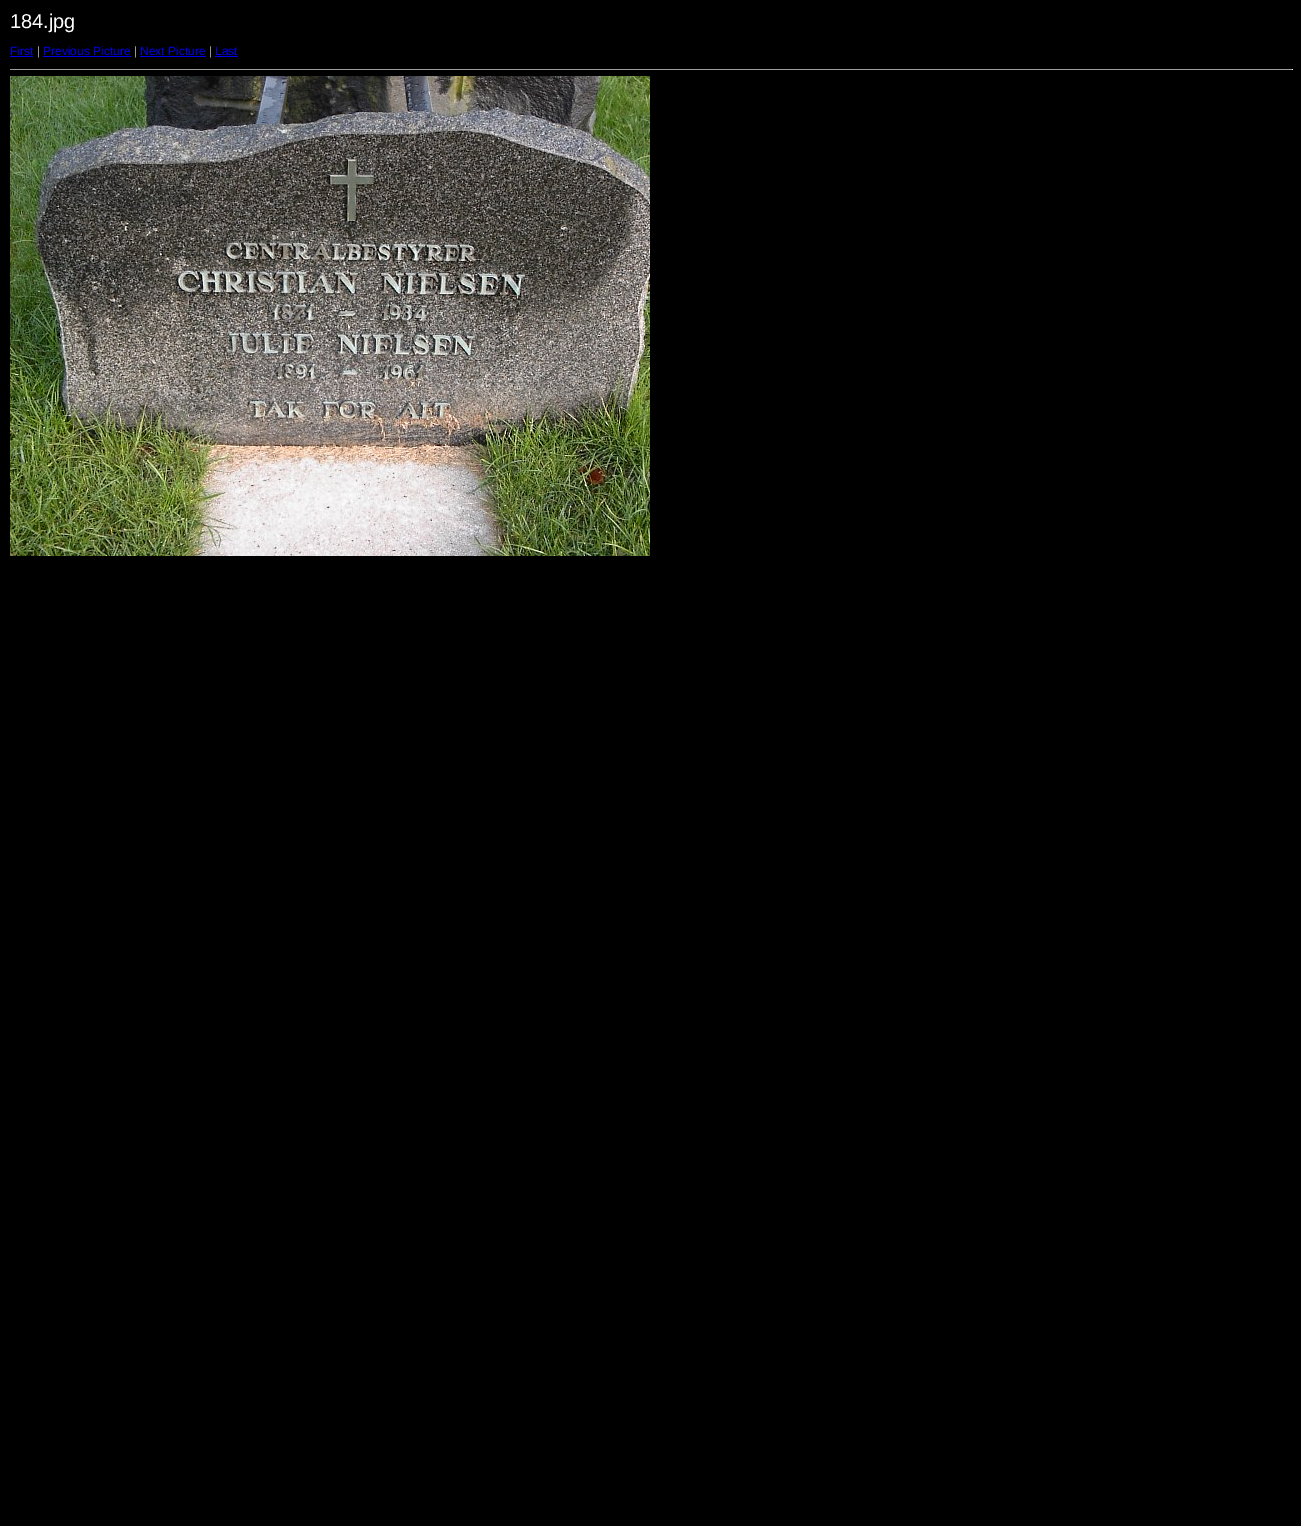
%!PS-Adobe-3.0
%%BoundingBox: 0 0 1301 1526
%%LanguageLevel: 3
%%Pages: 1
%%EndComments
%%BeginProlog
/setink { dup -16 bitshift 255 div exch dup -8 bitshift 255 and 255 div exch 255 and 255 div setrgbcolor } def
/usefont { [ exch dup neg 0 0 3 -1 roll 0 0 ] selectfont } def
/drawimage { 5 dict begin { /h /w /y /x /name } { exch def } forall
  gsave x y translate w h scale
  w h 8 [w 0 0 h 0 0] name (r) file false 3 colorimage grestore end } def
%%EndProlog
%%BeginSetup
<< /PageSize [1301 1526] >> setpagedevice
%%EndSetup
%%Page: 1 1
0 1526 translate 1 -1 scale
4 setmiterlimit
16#000000 setink
0 0 1301 1526 rectfill
/LiberationSans-Regular 20 usefont
16#FFFFFF setink
10 28 moveto (184.jpg) show
/LiberationSans-Regular 12 usefont
16#0000EE setink
10 55 moveto (First) show
10 56 23 1 rectfill
16#999999 setink
37 55 moveto (|) show
16#0000EE setink
43 55 moveto (Previous Picture) show
43 56 88 1 rectfill
16#999999 setink
134 55 moveto (|) show
16#0000EE setink
140 55 moveto (Next Picture) show
140 56 66 1 rectfill
16#999999 setink
209 55 moveto (|) show
16#0000EE setink
215 55 moveto (Last) show
[
    [215 56 23 1 16#0000EE]
    [10 69 1283 1 16#9F9F9F]
    [1292 69 1 1 16#EEEEEE]
] { aload pop setink rectfill } forall
(img1.raw) 10 76 640 480 drawimage
showpage
%%EOF
